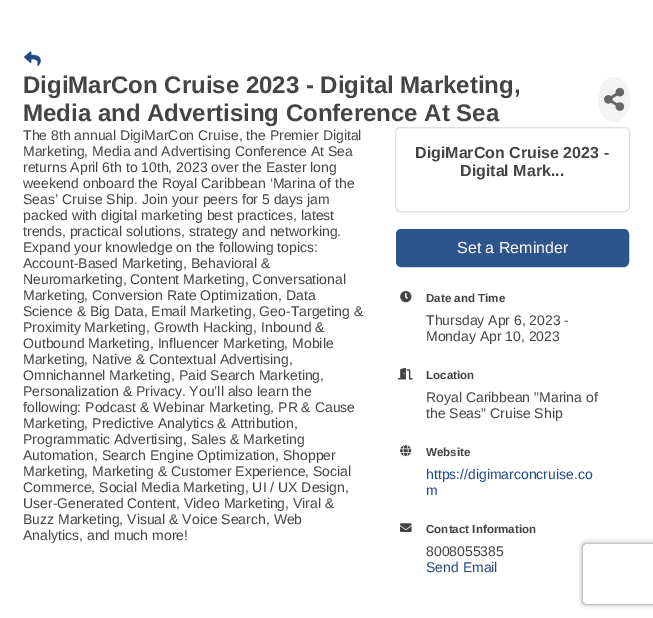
%!PS-Adobe-3.0
%%BoundingBox: 0 0 653 618
%%LanguageLevel: 3
%%Pages: 1
%%EndComments
%%BeginProlog
/setink { dup -16 bitshift 255 div exch dup -8 bitshift 255 and 255 div exch 255 and 255 div setrgbcolor } def
/usefont { [ exch dup neg 0 0 3 -1 roll 0 0 ] selectfont } def
/setalpha { dup .setfillconstantalpha .setstrokeconstantalpha } def
/rrect { 5 dict begin { /r /h /w /y /x } { exch def } forall
  x r add y moveto x w add y 2 copy h add r arct x w add y h add x 1 index r arct
  x y h add x y r arct x y 2 copy exch w add exch r arct closepath end } def
/softshadow { 12 dict begin { /a /b /q /h /w /y /x } { exch def } forall gsave /was 0 def
  9 -2 -9 { dup b mul 4 div /e exch def 1 sub .425 mul 2.718 exch exp 1 add a .99 .min exch div /now exch def
    1 1 now sub 1 was sub div sub setalpha /was now def
    w h .min e 2 mul add 0 gt { x e sub y e sub w e 2 mul add h e 2 mul add
      q e add b .6 mul add w h .min 2 div e add .min 0 .max rrect fill } if } for grestore end } def
/drawimage { 5 dict begin { /h /w /y /x /name } { exch def } forall
  gsave x y translate w h scale
  w h 8 [w 0 0 h 0 0] name (r) file false 3 colorimage grestore end } def
%%EndProlog
%%BeginSetup
<< /PageSize [653 618] /PageUsesTransparency true >> setpagedevice
%%EndSetup
%%Page: 1 1
0 .pushpdf14devicefilter
0 618 translate 1 -1 scale
4 setmiterlimit
16#FFFFFF setink
0 0 653 618 rectfill
(img1.raw) 24 51 17 15 drawimage
/LiberationSans-Bold 24 usefont
16#444444 setink
23 93 moveto (DigiMarCon Cruise 2023 - Digital Marketing,) show
23 121 moveto (Media and Advertising Conference At Sea) show
16#F3F3F3 setink
614 77 moveto 623 77 630 87 630 99.5 curveto 630 112 623 122 614 122 curveto 605 122 598 112 598 99.5 curveto 598 87 605 77 614 77 curveto closepath fill
(img2.raw) 604 87 21 24 drawimage
/LiberationSans-Regular 14 usefont
16#444444 setink
[
    [(The 8th annual DigiMarCon Cruise, the Premier Digital) 23 140]
    [(Marketing, Media and Advertising Conference At Sea) 23 156]
    [(returns April 6th to 10th, 2023 over the Easter long) 23 172]
    [(weekend onboard the Royal Caribbean ‘Marina of the) 23 188]
    [(Seas’ Cruise Ship. Join your peers for 5 days jam) 23 204]
    [(packed with digital marketing best practices, latest) 23 220]
    [(trends, practical solutions, strategy and networking.) 23 236]
    [(Expand your knowledge on the following topics:) 23 252]
    [(Account-Based Marketing, Behavioral &) 23 268]
    [(Neuromarketing, Content Marketing, Conversational) 23 284]
    [(Marketing, Conversion Rate Optimization, Data) 23 300]
    [(Science & Big Data, Email Marketing, Geo-Targeting &) 23 316]
    [(Proximity Marketing, Growth Hacking, Inbound &) 23 332]
    [(Outbound Marketing, Influencer Marketing, Mobile) 23 348]
    [(Marketing, Native & Contextual Advertising,) 23 364]
    [(Omnichannel Marketing, Paid Search Marketing,) 23 380]
    [(Personalization & Privacy. You’ll also learn the) 23 396]
    [(following: Podcast & Webinar Marketing, PR & Cause) 23 412]
    [(Marketing, Predictive Analytics & Attribution,) 23 428]
    [(Programmatic Advertising, Sales & Marketing) 23 444]
    [(Automation, Search Engine Optimization, Shopper) 23 460]
    [(Marketing, Marketing & Customer Experience, Social) 23 476]
    [(Commerce, Social Media Marketing, UI / UX Design,) 23 492]
    [(User-Generated Content, Video Marketing, Viral &) 23 508]
    [(Buzz Marketing, Visual & Voice Search, Web) 23 524]
    [(Analytics, and much more!) 23 540]
] { aload pop moveto show } forall
16#DFDFDF setink
395.5 127.5 234 84 4.5 rrect stroke
/LiberationSans-Bold 16 usefont
16#444444 setink
415 158 moveto (DigiMarCon Cruise 2023 -) show
460 176 moveto (Digital Mark...) show
16#2D548B setink
396.5 229.5 232 37 4.5 rrect gsave fill grestore
stroke
/LiberationSans-Regular 16 usefont
16#FFFFFF setink
457 253 moveto (Set a Reminder) show
(img3.raw) 400 291 12 12 drawimage
/LiberationSans-Bold 11.6 usefont
16#444444 setink
426 302 moveto (Date and Time) show
/LiberationSans-Regular 14 usefont
426 325 moveto (Thursday Apr 6, 2023 -) show
426 341 moveto (Monday Apr 10, 2023) show
(img4.raw) 398 367 15 13 drawimage
/LiberationSans-Bold 11.6 usefont
426 379 moveto (Location) show
/LiberationSans-Regular 14 usefont
426 402 moveto (Royal Caribbean "Marina of) show
426 418 moveto (the Seas" Cruise Ship) show
(img5.raw) 400 445 12 12 drawimage
/LiberationSans-Bold 11.6 usefont
426 456 moveto (Website) show
/LiberationSans-Regular 14 usefont
16#224884 setink
426 479 moveto (https://digimarconcruise.co) show
426 495 moveto (m) show
(img6.raw) 400 523 12 9 drawimage
/LiberationSans-Bold 11.6 usefont
16#444444 setink
426 533 moveto (Contact Information) show
/LiberationSans-Regular 14 usefont
426 556 moveto (8008055385) show
16#224884 setink
426 572 moveto (Send Email) show
gsave
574 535 moveto 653 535 lineto 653 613 lineto 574 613 lineto closepath 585 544 moveto 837 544 lineto 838 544 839 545 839 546 curveto 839 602 lineto 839 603 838 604 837 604 curveto 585 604 lineto 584 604 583 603 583 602 curveto 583 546 lineto 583 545 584 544 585 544 curveto closepath eoclip newpath
16#808080 setink
583 544 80 60 2 2.5 1 softshadow
grestore
.poppdf14devicefilter showpage
%%EOF
